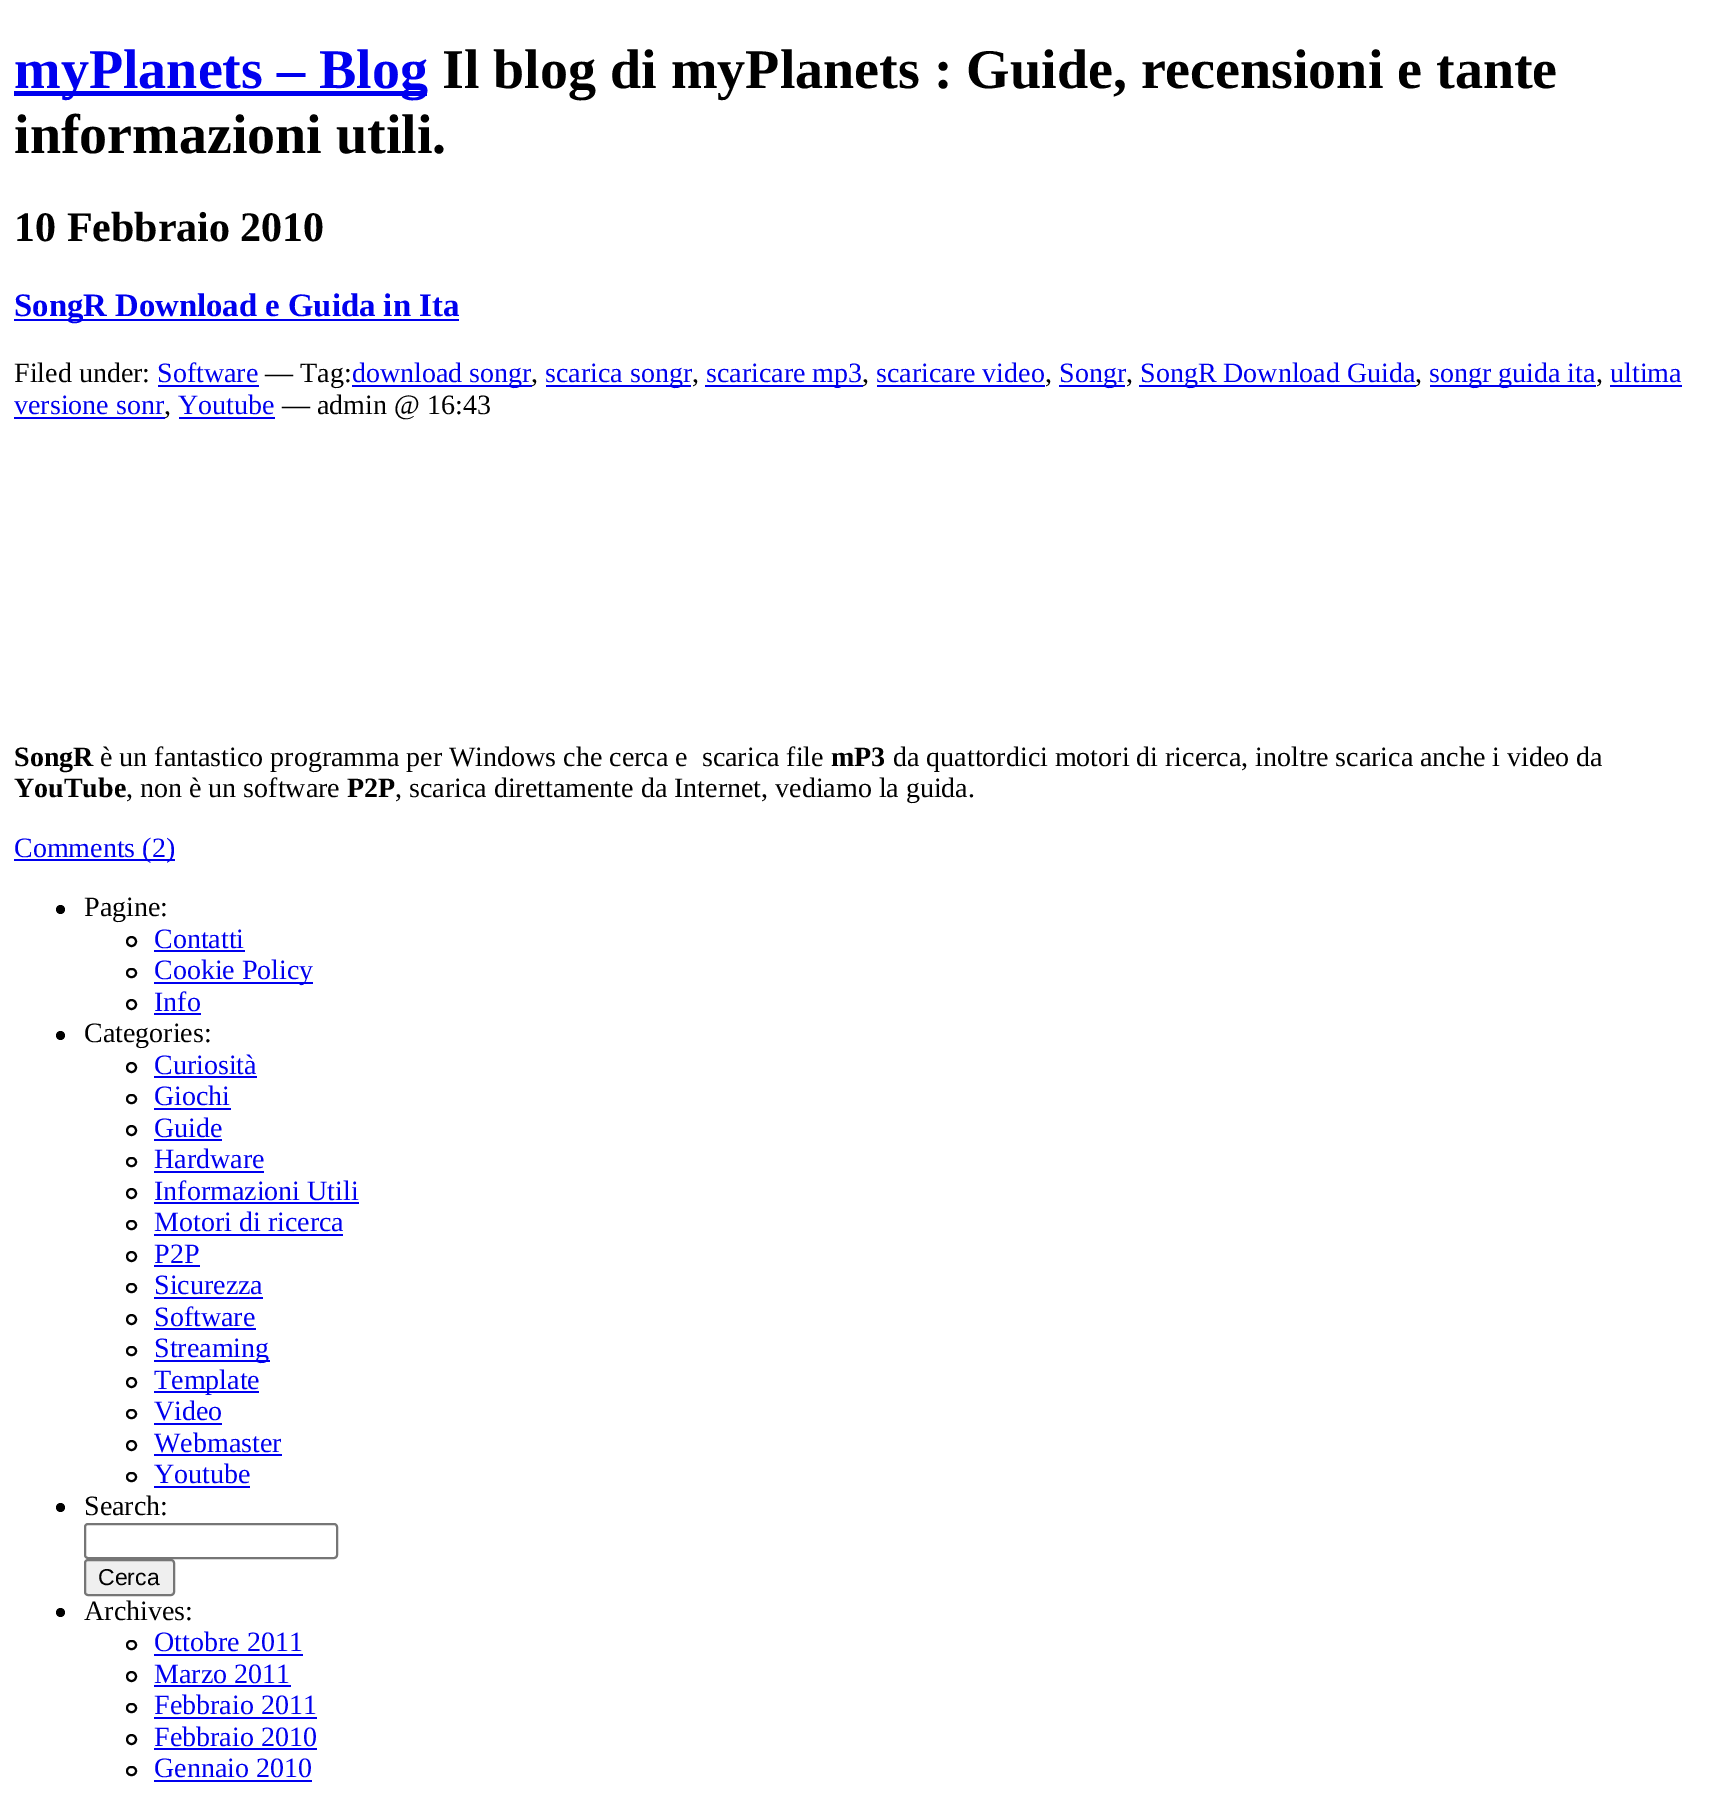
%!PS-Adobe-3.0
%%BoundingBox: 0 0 1722 1796
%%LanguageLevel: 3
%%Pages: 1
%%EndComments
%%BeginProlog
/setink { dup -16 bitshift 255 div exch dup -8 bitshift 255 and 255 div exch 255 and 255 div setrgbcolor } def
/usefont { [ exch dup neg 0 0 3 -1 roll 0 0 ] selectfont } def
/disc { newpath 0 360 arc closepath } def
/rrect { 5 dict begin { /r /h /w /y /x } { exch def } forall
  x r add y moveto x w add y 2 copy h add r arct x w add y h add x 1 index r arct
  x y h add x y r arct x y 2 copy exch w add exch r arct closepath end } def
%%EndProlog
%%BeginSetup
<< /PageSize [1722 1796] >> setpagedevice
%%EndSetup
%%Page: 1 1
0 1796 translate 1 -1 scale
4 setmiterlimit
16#FFFFFF setink
0 0 1722 1796 rectfill
16#0000EE setink
14 91 413 5 rectfill
/LiberationSerif-Bold 56 usefont
14 88 moveto (myPlanets – Blog) show
16#000000 setink
442 88 moveto (Il blog di myPlanets : Guide, recensioni e tante) show
14 153 moveto (informazioni utili.) show
/LiberationSerif-Bold 42 usefont
14 241 moveto (10 Febbraio 2010) show
16#0000EE setink
14 319 445 2 rectfill
/LiberationSerif-Bold 32.75 usefont
14 316 moveto (SongR Download e Guida in Ita) show
/LiberationSerif-Regular 28 usefont
16#000000 setink
14 382 moveto (Filed under:) show
16#0000EE setink
157 382 moveto (Software) show
158 385 101 2 rectfill
16#000000 setink
265 382 moveto (— Tag:) show
16#0000EE setink
352 385 180 2 rectfill
352 382 moveto (download songr) show
16#000000 setink
531 382 moveto (,) show
16#0000EE setink
546 385 145 2 rectfill
545 382 moveto (scarica songr) show
16#000000 setink
692 382 moveto (,) show
16#0000EE setink
705 385 158 2 rectfill
706 382 moveto (scaricare mp3) show
16#000000 setink
862 382 moveto (,) show
16#0000EE setink
876 382 moveto (scaricare video) show
877 385 168 2 rectfill
16#000000 setink
1045 382 moveto (,) show
16#0000EE setink
1059 385 66 2 rectfill
1059 382 moveto (Songr) show
16#000000 setink
1126 382 moveto (,) show
16#0000EE setink
1139 385 277 2 rectfill
1140 382 moveto (SongR Download Guida) show
16#000000 setink
1415 382 moveto (,) show
16#0000EE setink
1430 385 166 2 rectfill
1429 382 moveto (songr guida ita) show
16#000000 setink
1596 382 moveto (,) show
16#0000EE setink
1610 382 moveto (ultima) show
1610 385 72 2 rectfill
14 414 moveto (versione sonr) show
14 417 151 2 rectfill
16#000000 setink
164 414 moveto (,) show
16#0000EE setink
178 414 moveto (Youtube) show
179 417 96 2 rectfill
16#000000 setink
282 414 moveto (— admin @ 16:43) show
/LiberationSerif-Bold 28 usefont
14 766 moveto (SongR) show
/LiberationSerif-Regular 28 usefont
100 766 moveto (è un fantastico programma per Windows che cerca e  scarica file) show
/LiberationSerif-Bold 28 usefont
831 766 moveto (mP3) show
/LiberationSerif-Regular 28 usefont
893 766 moveto (da quattordici motori di ricerca, inoltre scarica anche i video da) show
/LiberationSerif-Bold 28 usefont
14 797 moveto (YouTube) show
/LiberationSerif-Regular 28 usefont
126 797 moveto (, non è un software) show
/LiberationSerif-Bold 28 usefont
347 797 moveto (P2P) show
/LiberationSerif-Regular 28 usefont
395 797 moveto (, scarica direttamente da Internet, vediamo la guida.) show
16#0000EE setink
14 859 161 2 rectfill
14 857 moveto (Comments \(2\)) show
16#000000 setink
60.5 909.5 4.5 disc fill
84 916 moveto (Pagine:) show
2 setlinewidth
131.5 941.5 4.5 disc stroke
16#0000EE setink
154 948 moveto (Contatti) show
154 950 91 2 rectfill
16#000000 setink
127 969 9 8 4 rrect stroke
16#0000EE setink
154 982 159 2 rectfill
154 979 moveto (Cookie Policy) show
16#000000 setink
131.5 1004.5 4.5 disc stroke
16#0000EE setink
154 1011 moveto (Info) show
154 1013 47 2 rectfill
16#000000 setink
60.5 1035.5 4.5 disc fill
84 1042 moveto (Categories:) show
131.5 1067.5 4.5 disc stroke
16#0000EE setink
154 1074 moveto (Curiosità) show
154 1076 103 2 rectfill
16#000000 setink
127 1095 9 8 4 rrect stroke
16#0000EE setink
154 1105 moveto (Giochi) show
154 1108 77 2 rectfill
16#000000 setink
131.5 1130.5 4.5 disc stroke
16#0000EE setink
154 1137 moveto (Guide) show
154 1139 68 2 rectfill
16#000000 setink
127 1158 9 8 4 rrect stroke
16#0000EE setink
154 1168 moveto (Hardware) show
154 1171 110 2 rectfill
16#000000 setink
131.5 1193.5 4.5 disc stroke
16#0000EE setink
154 1200 moveto (Informazioni Utili) show
154 1202 205 2 rectfill
16#000000 setink
127 1221 9 8 4 rrect stroke
16#0000EE setink
154 1231 moveto (Motori di ricerca) show
154 1234 189 2 rectfill
16#000000 setink
131.5 1256.5 4.5 disc stroke
16#0000EE setink
154 1263 moveto (P2P) show
154 1265 46 2 rectfill
16#000000 setink
127 1284 9 8 4 rrect stroke
16#0000EE setink
154 1294 moveto (Sicurezza) show
154 1297 109 2 rectfill
16#000000 setink
131.5 1319.5 4.5 disc stroke
16#0000EE setink
154 1326 moveto (Software) show
154 1328 102 2 rectfill
16#000000 setink
127 1347 9 8 4 rrect stroke
16#0000EE setink
154 1360 116 2 rectfill
154 1357 moveto (Streaming) show
16#000000 setink
131.5 1382.5 4.5 disc stroke
16#0000EE setink
154 1391 105 2 rectfill
154 1389 moveto (Template) show
16#000000 setink
127 1410 9 8 4 rrect stroke
16#0000EE setink
154 1420 moveto (Video) show
154 1423 68 2 rectfill
16#000000 setink
131.5 1445.5 4.5 disc stroke
16#0000EE setink
154 1452 moveto (Webmaster) show
154 1454 128 2 rectfill
16#000000 setink
127 1473 9 8 4 rrect stroke
16#0000EE setink
154 1483 moveto (Youtube) show
154 1486 96 2 rectfill
16#000000 setink
60.5 1507.5 4.5 disc fill
84 1515 moveto (Search:) show
16#767676 setink
85 1524 252 34 3 rrect stroke
16#EFEFEF setink
85 1560 89 35 3 rrect gsave fill grestore
16#767676 setink
stroke
/LiberationSans-Regular 23 usefont
16#000000 setink
98 1585 moveto (Cerca) show
60.5 1612.5 4.5 disc fill
/LiberationSerif-Regular 28 usefont
84 1620 moveto (Archives:) show
127 1641 9 8 4 rrect stroke
16#0000EE setink
154 1651 moveto (Ottobre 2011) show
154 1654 149 2 rectfill
16#000000 setink
131.5 1676.5 4.5 disc stroke
16#0000EE setink
154 1683 moveto (Marzo 2011) show
154 1685 137 2 rectfill
16#000000 setink
127 1704 9 8 4 rrect stroke
16#0000EE setink
154 1714 moveto (Febbraio 2011) show
154 1717 163 2 rectfill
16#000000 setink
131.5 1739.5 4.5 disc stroke
16#0000EE setink
154 1746 moveto (Febbraio 2010) show
154 1748 163 2 rectfill
16#000000 setink
127 1767 9 8 4 rrect stroke
16#0000EE setink
154 1777 moveto (Gennaio 2010) show
154 1780 158 2 rectfill
showpage
%%EOF
